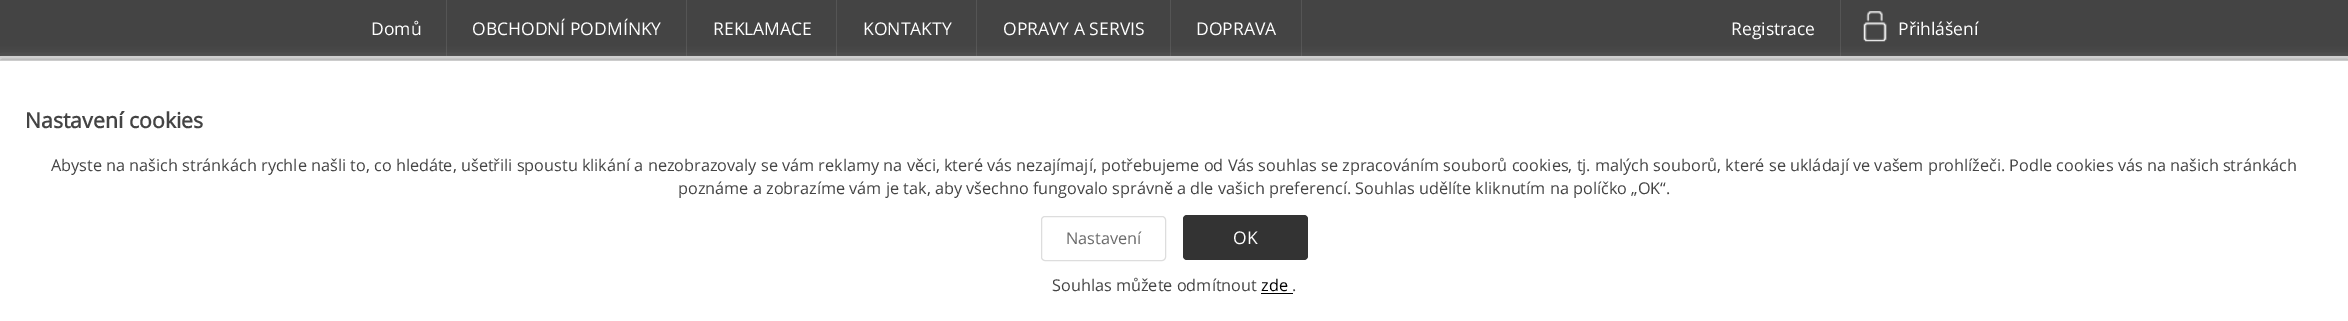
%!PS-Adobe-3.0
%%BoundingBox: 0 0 2348 321
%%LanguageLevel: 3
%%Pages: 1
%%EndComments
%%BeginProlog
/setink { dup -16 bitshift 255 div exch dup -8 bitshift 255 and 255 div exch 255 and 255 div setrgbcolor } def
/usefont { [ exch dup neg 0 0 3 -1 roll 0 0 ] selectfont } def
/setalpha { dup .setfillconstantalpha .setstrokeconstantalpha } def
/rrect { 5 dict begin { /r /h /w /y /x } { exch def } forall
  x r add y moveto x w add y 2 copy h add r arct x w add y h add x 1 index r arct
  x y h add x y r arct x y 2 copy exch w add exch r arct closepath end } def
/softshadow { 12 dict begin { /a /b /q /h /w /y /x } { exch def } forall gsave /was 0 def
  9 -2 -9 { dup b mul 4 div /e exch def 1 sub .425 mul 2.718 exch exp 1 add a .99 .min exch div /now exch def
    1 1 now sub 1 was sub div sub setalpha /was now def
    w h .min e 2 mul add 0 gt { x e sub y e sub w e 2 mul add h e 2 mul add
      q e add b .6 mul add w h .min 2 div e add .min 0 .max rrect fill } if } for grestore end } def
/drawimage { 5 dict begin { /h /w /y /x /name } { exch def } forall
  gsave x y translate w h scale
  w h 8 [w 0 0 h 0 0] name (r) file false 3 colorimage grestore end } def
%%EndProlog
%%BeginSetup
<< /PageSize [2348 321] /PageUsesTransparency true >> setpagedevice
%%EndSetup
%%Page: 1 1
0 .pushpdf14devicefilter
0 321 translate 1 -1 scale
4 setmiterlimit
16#444444 setink
0 0 2348 321 rectfill
16#555555 setink
446 0 1 56 rectfill
/OpenSans-Regular 17.5 usefont
16#FFFFFF setink
371 35 moveto (Domů) show
16#555555 setink
686 0 1 56 rectfill
16#FFFFFF setink
472 35 moveto (OBCHODNÍ PODMÍNKY) show
16#555555 setink
836 0 1 56 rectfill
16#FFFFFF setink
713 35 moveto (REKLAMACE) show
16#555555 setink
976 0 1 56 rectfill
16#FFFFFF setink
863 35 moveto (KONTAKTY) show
16#555555 setink
1170 0 1 56 rectfill
16#FFFFFF setink
1003 35 moveto (OPRAVY A SERVIS) show
16#555555 setink
1301 0 1 56 rectfill
16#FFFFFF setink
1196 35 moveto (DOPRAVA) show
16#555555 setink
1840 0 1 56 rectfill
16#FFFFFF setink
1731 35 moveto (Registrace) show
(img1.raw) 1863 11 24 31 drawimage
1898 35 moveto (Přihlášení) show
16#EEEEEE setink
0 56 2348 4 rectfill
16#888888 setink
0 60 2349 261 0 6 1 softshadow
16#FFFFFF setink
0 61 2348 260 rectfill
16#CCCCCC setink
0 60 2348 1 rectfill
/OpenSans-Bold 21.25 usefont
16#444444 setink
25 128 moveto (Nastavení cookies) show
/OpenSans-Regular 16.25 usefont
51 171 moveto (Abyste na našich stránkách rychle našli to, co hledáte, ušetřili spoustu klikání a nezobrazovaly se vám reklamy na věci, které vás nezajímají, potřebujeme od Vás souhlas se zpracováním souborů cookies, tj. malých souborů, které se ukládají ve vašem prohlížeči. Podle cookies vás na našich stránkách) show
678 194 moveto (poznáme a zobrazíme vám je tak, aby všechno fungovalo správně a dle vašich preferencí. Souhlas udělíte kliknutím na políčko „OK“.) show
16#DDDDDD setink
1041.5 216.5 124 44 3.5 rrect stroke
16#6B6B6B setink
1066 244 moveto (Nastavení) show
16#333333 setink
1183 215 125 45 4 rrect fill
/OpenSans-Regular 17.5 usefont
16#FFFFFF setink
1233 244 moveto (OK) show
/OpenSans-Regular 16.25 usefont
16#444444 setink
1052 291 moveto (Souhlas můžete odmítnout) show
16#000000 setink
1261 291 moveto (zde) show
1261 293 32 1 rectfill
16#444444 setink
1292 291 moveto (.) show
.poppdf14devicefilter showpage
%%EOF
